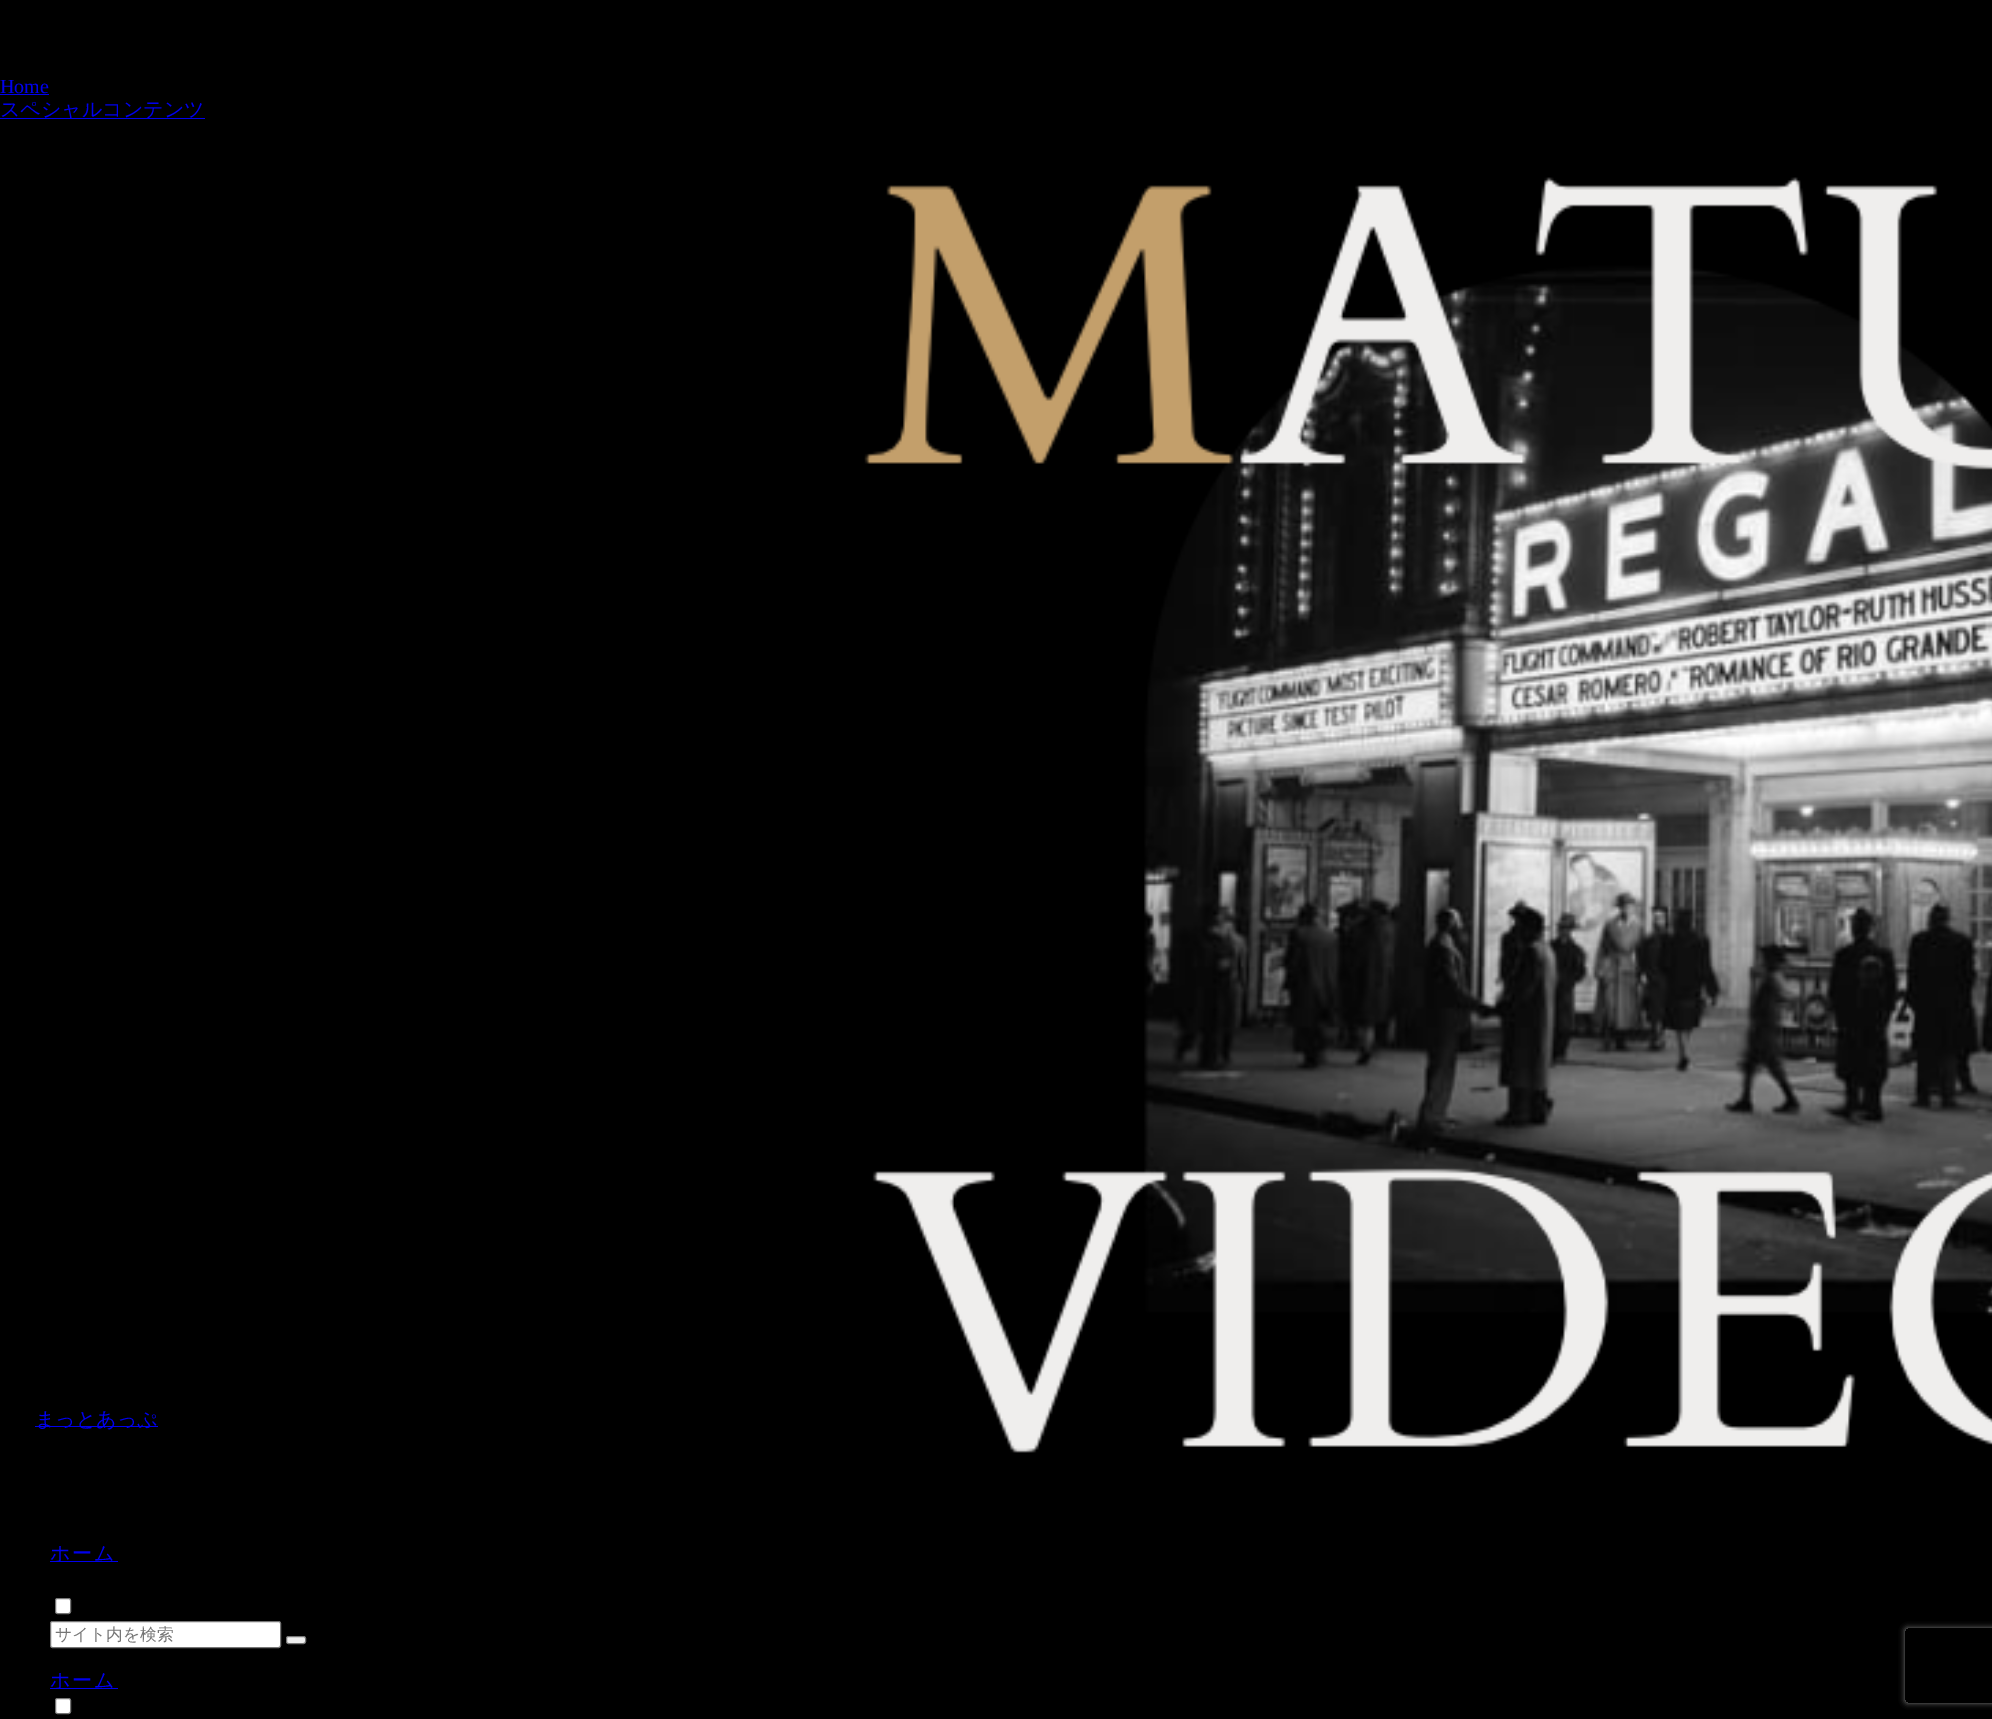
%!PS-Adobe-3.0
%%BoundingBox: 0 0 1992 1719
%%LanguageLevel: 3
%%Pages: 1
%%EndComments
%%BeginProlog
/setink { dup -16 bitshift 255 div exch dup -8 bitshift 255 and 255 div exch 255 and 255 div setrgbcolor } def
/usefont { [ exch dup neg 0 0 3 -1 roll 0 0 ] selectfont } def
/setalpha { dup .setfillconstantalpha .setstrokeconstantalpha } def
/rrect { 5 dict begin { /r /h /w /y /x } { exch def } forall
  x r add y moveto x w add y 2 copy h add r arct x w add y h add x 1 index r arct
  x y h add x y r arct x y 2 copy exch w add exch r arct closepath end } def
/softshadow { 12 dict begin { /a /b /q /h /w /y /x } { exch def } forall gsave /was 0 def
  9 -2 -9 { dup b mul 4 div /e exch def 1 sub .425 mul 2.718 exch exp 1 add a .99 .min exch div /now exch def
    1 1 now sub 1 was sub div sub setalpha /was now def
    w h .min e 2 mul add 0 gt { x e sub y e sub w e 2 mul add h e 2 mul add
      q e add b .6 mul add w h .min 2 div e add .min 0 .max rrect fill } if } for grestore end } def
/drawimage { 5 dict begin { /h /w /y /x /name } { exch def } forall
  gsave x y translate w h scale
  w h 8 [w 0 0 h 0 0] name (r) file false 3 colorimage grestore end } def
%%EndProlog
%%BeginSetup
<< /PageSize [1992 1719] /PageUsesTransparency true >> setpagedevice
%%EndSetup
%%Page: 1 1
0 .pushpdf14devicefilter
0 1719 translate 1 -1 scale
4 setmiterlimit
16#FFFFFF setink
0 0 1992 1719 rectfill
(img1.raw) 0 0 1992 1719 drawimage
/LiberationSerif-Regular 20 usefont
16#0000EE setink
0 93 moveto (Home) show
0 94 49 1 rectfill
0 118 205 1 rectfill
/WenQuanYiZenHei-Medium 20 usefont
0 116 moveto (スペシャルコンテンツ) show
35 1426 123 1 rectfill
35 1426 moveto (まっとあっぷ) show
50 1561 68 1 rectfill
50 1560 moveto 2 0 (ホーム) ashow
16#FFFFFF setink
55.5 1598.5 15 15 2 rrect gsave fill grestore
16#767676 setink
stroke
16#FFFFFF setink
50.5 1621.5 230 26 2 rrect gsave fill grestore
16#767676 setink
stroke
/WenQuanYiZenHei-Medium 16.75 usefont
16#757575 setink
55 1640 moveto (サイト内を検索) show
16#EFEFEF setink
286.5 1636.5 19 7 2 rrect gsave fill grestore
16#767676 setink
stroke
16#0000EE setink
50 1688 68 1 rectfill
/WenQuanYiZenHei-Medium 20 usefont
50 1687 moveto 2 0 (ホーム) ashow
16#FFFFFF setink
55.5 1698.5 15 15 2 rrect gsave fill grestore
16#767676 setink
stroke
gsave
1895 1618 moveto 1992 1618 lineto 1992 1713 lineto 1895 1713 lineto closepath 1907.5 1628 moveto 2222.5 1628 lineto 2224 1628 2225 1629 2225 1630.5 curveto 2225 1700.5 lineto 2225 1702 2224 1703 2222.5 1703 curveto 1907.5 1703 lineto 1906 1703 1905 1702 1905 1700.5 curveto 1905 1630.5 lineto 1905 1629 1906 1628 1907.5 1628 curveto closepath eoclip newpath
16#808080 setink
1905 1628 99 75 2.5 3 1 softshadow
grestore
.poppdf14devicefilter showpage
%%EOF
